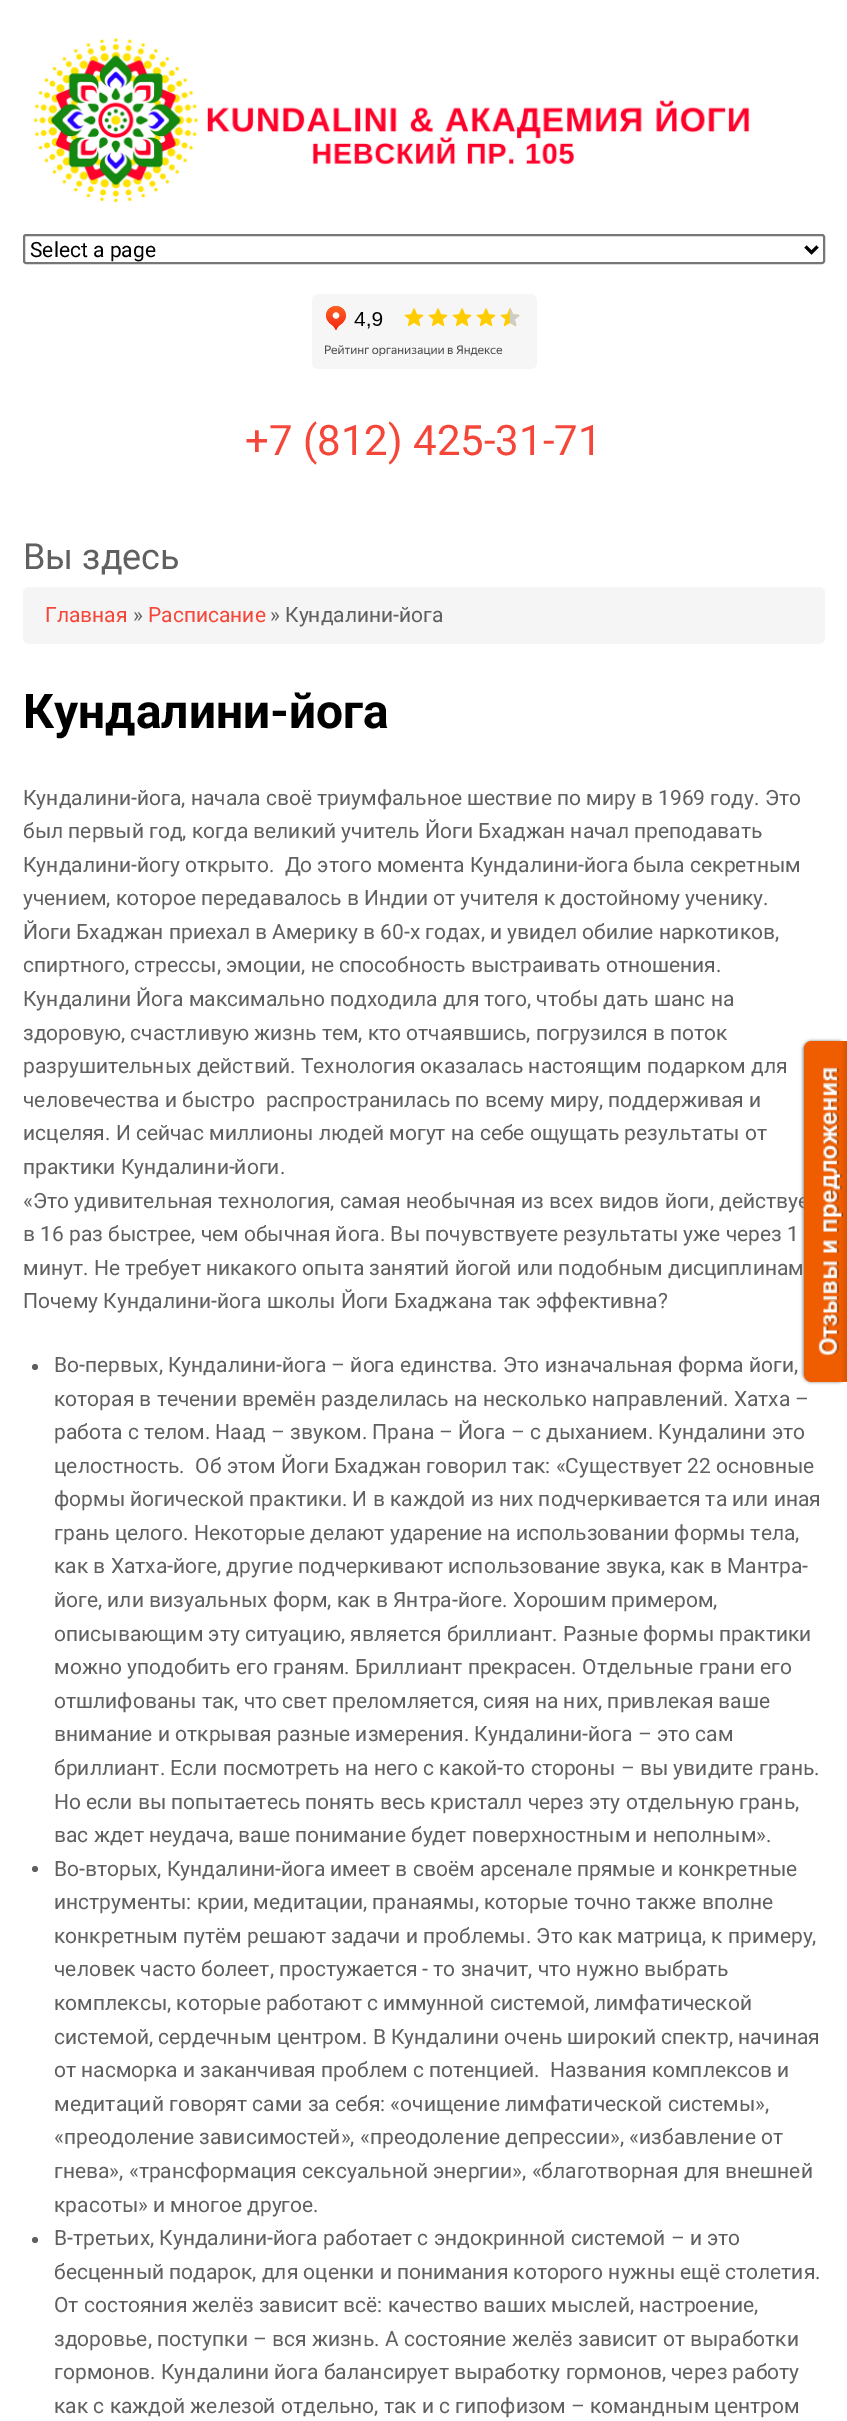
%!PS-Adobe-3.0
%%BoundingBox: 0 0 847 2421
%%LanguageLevel: 3
%%Pages: 1
%%EndComments
%%BeginProlog
/setink { dup -16 bitshift 255 div exch dup -8 bitshift 255 and 255 div exch 255 and 255 div setrgbcolor } def
/usefont { [ exch dup neg 0 0 3 -1 roll 0 0 ] selectfont } def
/setalpha { dup .setfillconstantalpha .setstrokeconstantalpha } def
/disc { newpath 0 360 arc closepath } def
/rrect { 5 dict begin { /r /h /w /y /x } { exch def } forall
  x r add y moveto x w add y 2 copy h add r arct x w add y h add x 1 index r arct
  x y h add x y r arct x y 2 copy exch w add exch r arct closepath end } def
/softshadow { 12 dict begin { /a /b /q /h /w /y /x } { exch def } forall gsave /was 0 def
  9 -2 -9 { dup b mul 4 div /e exch def 1 sub .425 mul 2.718 exch exp 1 add a .99 .min exch div /now exch def
    1 1 now sub 1 was sub div sub setalpha /was now def
    w h .min e 2 mul add 0 gt { x e sub y e sub w e 2 mul add h e 2 mul add
      q e add b .6 mul add w h .min 2 div e add .min 0 .max rrect fill } if } for grestore end } def
/drawimage { 5 dict begin { /h /w /y /x /name } { exch def } forall
  gsave x y translate w h scale
  w h 8 [w 0 0 h 0 0] name (r) file false 3 colorimage grestore end } def
%%EndProlog
%%BeginSetup
<< /PageSize [847 2421] /PageUsesTransparency true >> setpagedevice
%%EndSetup
%%Page: 1 1
0 .pushpdf14devicefilter
0 2421 translate 1 -1 scale
4 setmiterlimit
16#FFFFFF setink
0 0 847 2421 rectfill
(img1.raw) 33 37 717 166 drawimage
16#767676 setink
2 setlinewidth
24 235 800 28 2 rrect stroke
16#000000 setink
3 setlinewidth
805.5 246.5 moveto 811.5 252.5 lineto 817.5 246.5 lineto stroke
/Roboto-Regular 21 usefont
30 257 moveto (Select a page) show
(img2.raw) 312 294 225 75 drawimage
/Roboto-Regular 42 usefont
16#F4473A setink
245 455 moveto (+7 \(812\) 425-31-71) show
/Roboto-Regular 36 usefont
16#606060 setink
23 569 moveto (Вы здесь) show
16#F5F5F5 setink
23 587 802 57 6 rrect fill
/Roboto-Regular 21 usefont
16#F4473A setink
45 622 moveto (Главная) show
16#606060 setink
133 622 moveto (») show
16#F4473A setink
148 622 moveto (Расписание) show
16#606060 setink
270 622 moveto (» Кундалини-йога) show
/Roboto-Bold 48 usefont
16#000000 setink
23 728 moveto (Кундалини-йога) show
/Roboto-Regular 21 usefont
16#606060 setink
[
    [(Кундалини-йога, начала своё триумфальное шествие по миру в 1969 году. Это) 23 805]
    [(был первый год, когда великий учитель Йоги Бхаджан начал преподавать) 23 838]
    [(Кундалини-йогу открыто.  До этого момента Кундалини-йога была секретным) 23 872]
    [(учением, которое передавалось в Индии от учителя к достойному ученику.) 23 905]
    [(Йоги Бхаджан приехал в Америку в 60-х годах, и увидел обилие наркотиков,) 23 939]
    [(спиртного, стрессы, эмоции, не способность выстраивать отношения.) 23 972]
    [(Кундалини Йога максимально подходила для того, чтобы дать шанс на) 23 1006]
    [(здоровую, счастливую жизнь тем, кто отчаявшись, погрузился в поток) 23 1040]
    [(разрушительных действий. Технология оказалась настоящим подарком для) 23 1073]
    [(человечества и быстро  распространилась по всему миру, поддерживая и) 23 1107]
    [(исцеляя. И сейчас миллионы людей могут на себе ощущать результаты от) 23 1140]
    [(практики Кундалини-йоги.) 23 1174]
    [(«Это удивительная технология, самая необычная из всех видов йоги, действуе) 23 1208]
    [(в 16 раз быстрее, чем обычная йога. Вы почувствуете результаты уже через 1) 23 1241]
    [(минут. Не требует никакого опыта занятий йогой или подобным дисциплинам) 23 1275]
    [(Почему Кундалини-йога школы Йоги Бхаджана так эффективна?) 23 1308]
] { aload pop moveto show } forall
35 1367 3 disc fill
[
    [(Во-первых, Кундалини-йога – йога единства. Это изначальная форма йоги,) 54 1372]
    [(которая в течении времён разделилась на несколько направлений. Хатха –) 54 1406]
    [(работа с телом. Наад – звуком. Прана – Йога – с дыханием. Кундалини это) 54 1439]
    [(целостность.  Об этом Йоги Бхаджан говорил так: «Существует 22 основные) 54 1473]
    [(формы йогической практики. И в каждой из них подчеркивается та или иная) 54 1506]
    [(грань целого. Некоторые делают ударение на использовании формы тела,) 54 1540]
    [(как в Хатха-йоге, другие подчеркивают использование звука, как в Мантра-) 54 1573]
    [(йоге, или визуальных форм, как в Янтра-йоге. Хорошим примером,) 54 1607]
    [(описывающим эту ситуацию, является бриллиант. Разные формы практики) 54 1641]
    [(можно уподобить его граням. Бриллиант прекрасен. Отдельные грани его) 54 1674]
    [(отшлифованы так, что свет преломляется, сияя на них, привлекая ваше) 54 1708]
    [(внимание и открывая разные измерения. Кундалини-йога – это сам) 54 1741]
    [(бриллиант. Если посмотреть на него с какой-то стороны – вы увидите грань.) 54 1775]
    [(Но если вы попытаетесь понять весь кристалл через эту отдельную грань,) 54 1809]
    [(вас ждет неудача, ваше понимание будет поверхностным и неполным».) 54 1842]
] { aload pop moveto show } forall
35 1869 3 disc fill
[
    [(Во-вторых, Кундалини-йога имеет в своём арсенале прямые и конкретные) 54 1876]
    [(инструменты: крии, медитации, пранаямы, которые точно также вполне) 54 1909]
    [(конкретным путём решают задачи и проблемы. Это как матрица, к примеру,) 54 1943]
    [(человек часто болеет, простужается - то значит, что нужно выбрать) 54 1976]
    [(комплексы, которые работают с иммунной системой, лимфатической) 54 2010]
    [(системой, сердечным центром. В Кундалини очень широкий спектр, начиная) 54 2044]
    [(от насморка и заканчивая проблем с потенцией.  Названия комплексов и) 54 2077]
    [(медитаций говорят сами за себя: «очищение лимфатической системы»,) 54 2111]
    [(«преодоление зависимостей», «преодоление депрессии», «избавление от) 54 2144]
    [(гнева», «трансформация сексуальной энергии», «благотворная для внешней) 54 2178]
    [(красоты» и многое другое.) 54 2212]
] { aload pop moveto show } forall
35 2240 3 disc fill
[
    [(В-третьих, Кундалини-йога работает с эндокринной системой – и это) 54 2245]
    [(бесценный подарок, для оценки и понимания которого нужны ещё столетия.) 54 2279]
    [(От состояния желёз зависит всё: качество ваших мыслей, настроение,) 54 2312]
    [(здоровье, поступки – вся жизнь. А состояние желёз зависит от выработки) 54 2346]
    [(гормонов. Кундалини йога балансирует выработку гормонов, через работу) 54 2379]
    [(как с каждой железой отдельно, так и с гипофизом – командным центром) 54 2413]
] { aload pop moveto show } forall
16#888888 setink
803 1041 43 341 8 1.5 1 softshadow
16#F05C00 setink
812 1041 moveto 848 1041 lineto 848 1382 lineto 812 1382 lineto 807.5 1382 804 1378.5 804 1374 curveto 804 1049 lineto 804 1044.5 807.5 1041 812 1041 curveto closepath fill
(img3.raw) 842 1041 5 341 drawimage
(img4.raw) 818 1067 25 290 drawimage
.poppdf14devicefilter showpage
%%EOF
